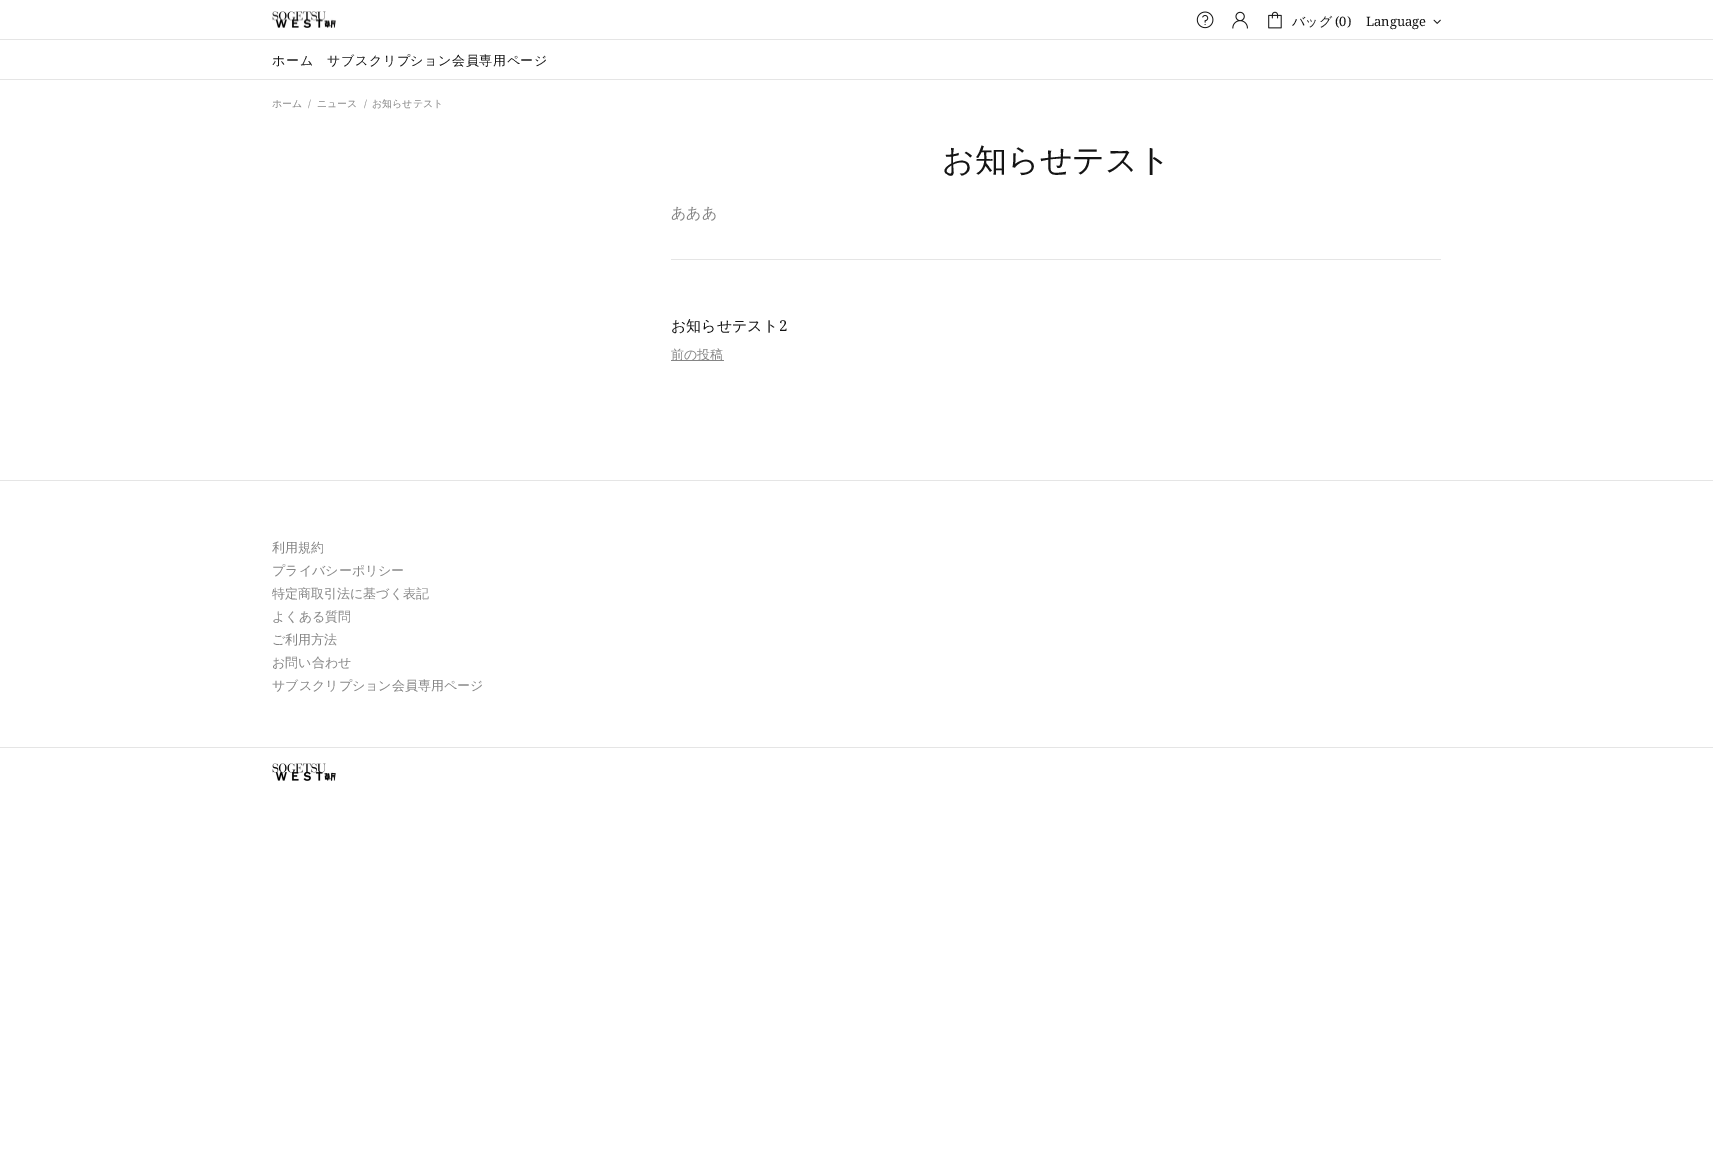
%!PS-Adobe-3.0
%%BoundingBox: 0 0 1713 1169
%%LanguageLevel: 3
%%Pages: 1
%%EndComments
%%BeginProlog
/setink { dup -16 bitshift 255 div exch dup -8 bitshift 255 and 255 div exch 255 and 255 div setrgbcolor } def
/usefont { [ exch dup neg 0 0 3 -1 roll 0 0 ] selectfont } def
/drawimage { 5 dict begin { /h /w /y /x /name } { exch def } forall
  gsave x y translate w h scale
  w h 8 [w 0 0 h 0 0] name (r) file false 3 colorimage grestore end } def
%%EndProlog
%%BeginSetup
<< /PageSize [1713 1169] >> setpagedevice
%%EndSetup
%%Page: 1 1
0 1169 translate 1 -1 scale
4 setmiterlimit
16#FFFFFF setink
0 0 1713 1169 rectfill
16#E5E5E5 setink
0 39 1713 1 rectfill
(img1.raw) 272 11 64 17 drawimage
(img2.raw) 1196 11 18 18 drawimage
(img3.raw) 1232 11 16 18 drawimage
(img4.raw) 1268 11 14 18 drawimage
/WenQuanYiZenHei-Medium 13 usefont
16#141414 setink
1292 26 moveto (バッグ) show
/NotoSerif-Regular 13 usefont
1335 26 moveto (\(0\)) show
1366 26 moveto (Language) show
(img5.raw) 1433 19 8 5 drawimage
16#E5E5E5 setink
0 79 1713 1 rectfill
/WenQuanYiZenHei-Medium 13 usefont
16#141414 setink
272 65 moveto 0.6 0 (ホーム) ashow
327 65 moveto 0.6 0 (サブスクリプション会員専用ページ) ashow
/WenQuanYiZenHei-Medium 10 usefont
16#858585 setink
272 107 moveto (ホーム) show
/NotoSerif-Regular 10 usefont
308 107 moveto (/) show
/WenQuanYiZenHei-Medium 10 usefont
317 107 moveto (ニュース) show
/NotoSerif-Regular 10 usefont
364 107 moveto (/) show
/WenQuanYiZenHei-Medium 10 usefont
372 107 moveto (お知らせテスト) show
/WenQuanYiZenHei-Medium 32 usefont
16#141414 setink
942 171 moveto (お知らせテスト) show
/WenQuanYiZenHei-Medium 15 usefont
16#858585 setink
671 218 moveto (あああ) show
16#E5E5E5 setink
671 259 770 1 rectfill
16#141414 setink
671 331 moveto (お知らせテスト) show
/NotoSerif-Regular 15 usefont
779 331 moveto (2) show
16#858585 setink
671 360 53 1 rectfill
/WenQuanYiZenHei-Medium 13 usefont
671 359 moveto (前の投稿) show
16#E5E5E5 setink
0 480 1713 1 rectfill
16#858585 setink
[
    [(利用規約) 272 552]
    [(プライバシーポリシー) 272 575]
    [(特定商取引法に基づく表記) 272 598]
    [(よくある質問) 272 621]
    [(ご利用方法) 272 644]
    [(お問い合わせ) 272 667]
    [(サブスクリプション会員専用ページ) 272 690]
] { aload pop moveto show } forall
16#E5E5E5 setink
0 747 1713 1 rectfill
(img6.raw) 272 763 64 18 drawimage
showpage
%%EOF
